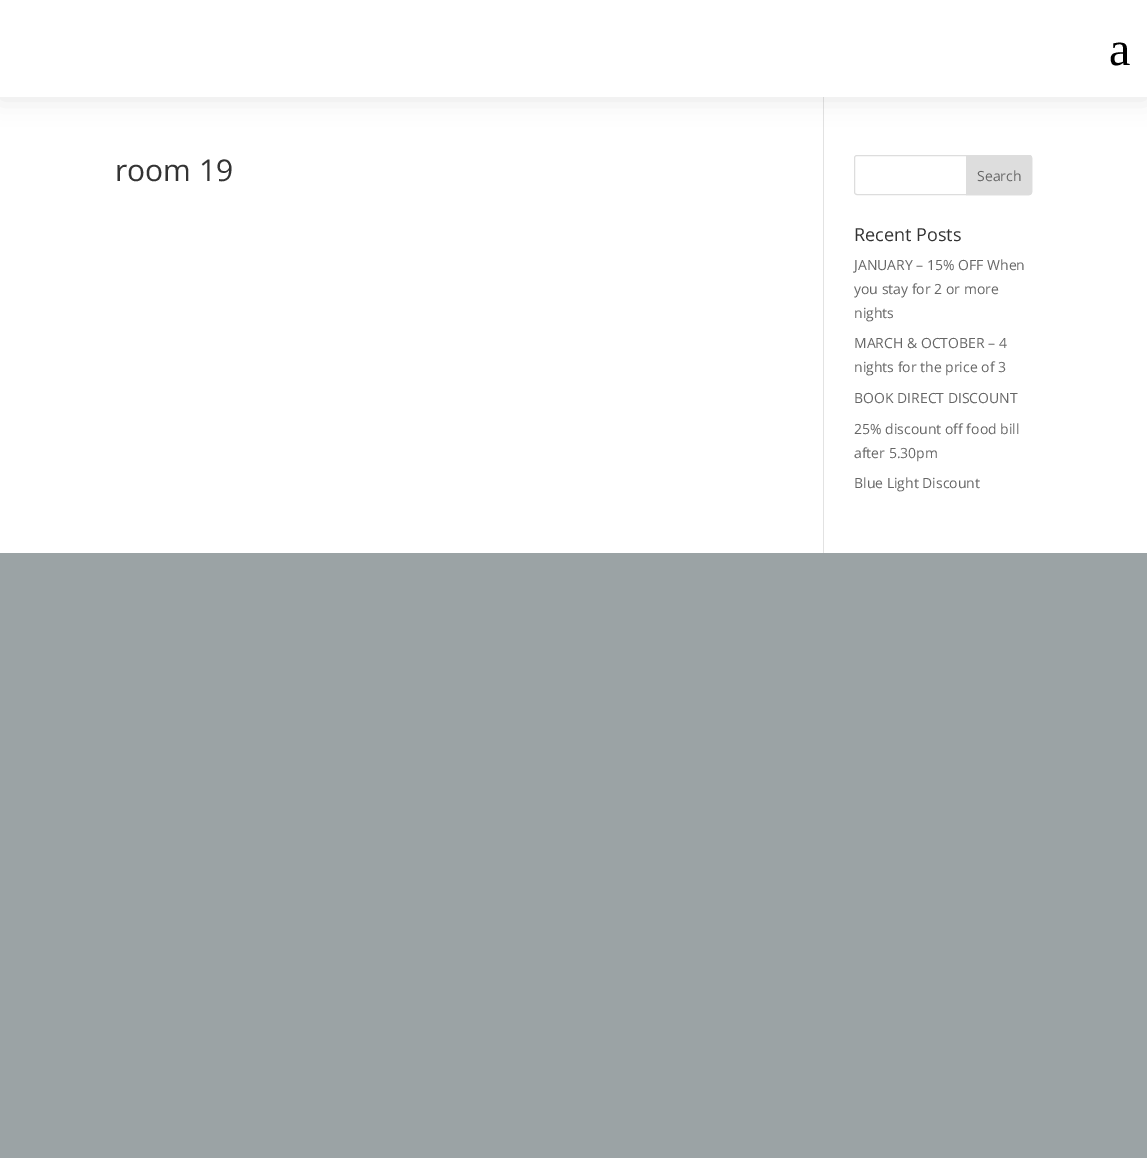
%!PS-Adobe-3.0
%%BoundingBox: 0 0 1147 1158
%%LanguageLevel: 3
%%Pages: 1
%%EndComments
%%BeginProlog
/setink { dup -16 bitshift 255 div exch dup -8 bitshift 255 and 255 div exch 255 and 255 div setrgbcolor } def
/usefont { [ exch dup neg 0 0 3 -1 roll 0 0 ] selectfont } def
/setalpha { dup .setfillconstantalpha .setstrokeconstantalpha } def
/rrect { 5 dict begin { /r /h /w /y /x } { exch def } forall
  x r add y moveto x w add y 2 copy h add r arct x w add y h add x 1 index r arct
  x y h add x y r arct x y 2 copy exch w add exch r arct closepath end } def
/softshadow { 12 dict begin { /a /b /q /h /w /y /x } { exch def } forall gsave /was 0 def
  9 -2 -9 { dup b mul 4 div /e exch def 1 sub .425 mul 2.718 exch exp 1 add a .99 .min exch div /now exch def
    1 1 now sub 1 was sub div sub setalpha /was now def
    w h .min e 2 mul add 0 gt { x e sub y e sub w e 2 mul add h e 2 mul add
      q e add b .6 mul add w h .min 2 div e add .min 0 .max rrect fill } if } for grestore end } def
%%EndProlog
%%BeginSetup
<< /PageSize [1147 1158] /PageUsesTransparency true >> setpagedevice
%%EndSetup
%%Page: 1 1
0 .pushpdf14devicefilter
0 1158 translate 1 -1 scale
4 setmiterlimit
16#9BA3A5 setink
0 0 1147 1158 rectfill
16#FFFFFF setink
0 97 1147 456 rectfill
16#E2E2E2 setink
823 97 1 456 rectfill
16#000000 setink
0 2 1147 97 0 12.5 0.1 softshadow
16#FFFFFF setink
0 0 1147 97 rectfill
/LiberationSerif-Regular 48 usefont
16#000000 setink
1109 65 moveto (a) show
/OpenSans-Regular 30 usefont
16#333333 setink
115 181 moveto (room 19) show
16#DDDDDD setink
854.5 155.5 177 39 2.5 rrect stroke
966.5 155.5 moveto 1029 155.5 lineto 1030.5 155.5 1031.5 156.5 1031.5 158 curveto 1031.5 192 lineto 1031.5 193.5 1030.5 194.5 1029 194.5 curveto 966.5 194.5 lineto closepath gsave fill grestore
stroke
/OpenSans-Regular 14 usefont
16#666666 setink
977 181 moveto (Search) show
/OpenSans-Regular 18 usefont
16#333333 setink
854 241 moveto (Recent Posts) show
/OpenSans-Regular 14 usefont
16#666666 setink
[
    [(JANUARY – 15% OFF When) 854 270]
    [(you stay for 2 or more) 854 294]
    [(nights) 854 318]
    [(MARCH & OCTOBER – 4) 854 348]
    [(nights for the price of 3) 854 372]
    [(BOOK DIRECT DISCOUNT) 854 403]
    [(25% discount off food bill) 854 434]
    [(after 5.30pm) 854 458]
    [(Blue Light Discount) 854 488]
] { aload pop moveto show } forall
.poppdf14devicefilter showpage
%%EOF
